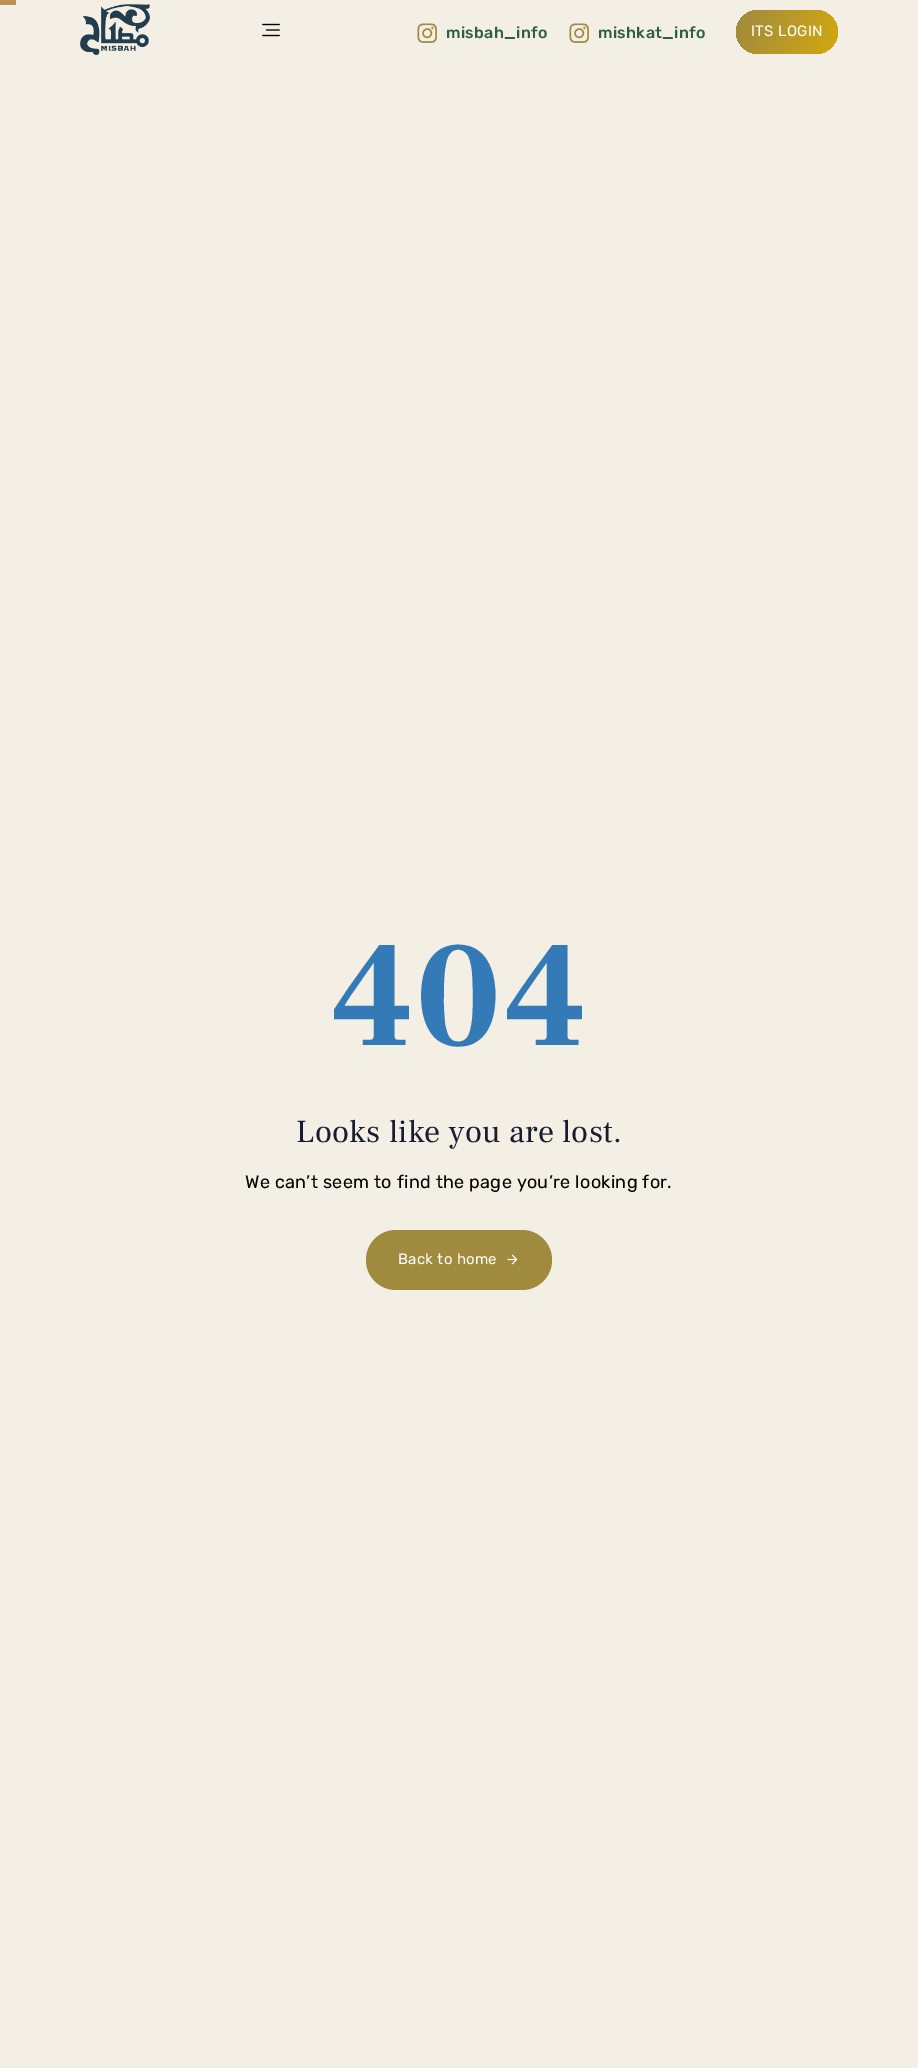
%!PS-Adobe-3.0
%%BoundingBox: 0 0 918 2068
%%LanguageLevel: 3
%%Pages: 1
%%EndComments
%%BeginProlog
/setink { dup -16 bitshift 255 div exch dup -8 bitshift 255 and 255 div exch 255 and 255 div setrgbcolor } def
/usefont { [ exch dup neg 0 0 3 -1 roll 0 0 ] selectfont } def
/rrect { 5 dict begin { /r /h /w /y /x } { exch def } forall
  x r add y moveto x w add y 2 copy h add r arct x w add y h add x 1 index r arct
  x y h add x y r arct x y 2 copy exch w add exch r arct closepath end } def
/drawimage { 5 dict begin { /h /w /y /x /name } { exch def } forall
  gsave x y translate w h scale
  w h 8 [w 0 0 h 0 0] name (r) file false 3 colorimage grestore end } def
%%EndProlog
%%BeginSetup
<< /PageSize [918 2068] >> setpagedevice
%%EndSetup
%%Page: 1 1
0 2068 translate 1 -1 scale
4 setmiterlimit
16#F3EFE5 setink
0 0 918 2068 rectfill
16#BB9053 setink
0 0 16 5 rectfill
(img1.raw) 80 4 70 51 drawimage
(img2.raw) 262 23 18 14 drawimage
(img3.raw) 417 23 20 20 drawimage
/Rubik-Medium 16 usefont
16#2E5E48 setink
446 38 moveto 0.3 0 (misbah_info) ashow
(img3.raw) 569 23 20 20 drawimage
598 38 moveto 0.3 0 (mishkat_info) ashow
gsave 736 10 102 44 22 rrect clip newpath
<< /ShadingType 2 /ColorSpace /DeviceRGB /Coords [736 11 838 53] /Extend [true true] /Function << /FunctionType 2 /Domain [0 1] /C0 [0.624 0.541 0.243] /C1 [0.824 0.659 0.059] /N 1 >> >> shfill grestore
/Rubik-Regular 15 usefont
16#FFFFFF setink
751 36 moveto 0.3 0 (ITS LOGIN) ashow
/FrankRuhlLibre-Bold 150 usefont
16#337AB7 setink
330 1045 moveto 0.3 0 (404) ashow
/FrankRuhlLibre-Regular 32 usefont
16#181B31 setink
296 1142 moveto 0.3 0 (Looks like you are lost.) ashow
/Rubik-Regular 18 usefont
16#000000 setink
245 1188 moveto 0.3 0 (We can’t seem to find the page you’re looking for.) ashow
16#9F8A3E setink
366 1230 186 60 30 rrect fill
/Rubik-Regular 15 usefont
16#FFFFFF setink
398 1264 moveto 0.3 0 (Back to home) ashow
(img4.raw) 507 1254 11 11 drawimage
showpage
%%EOF
